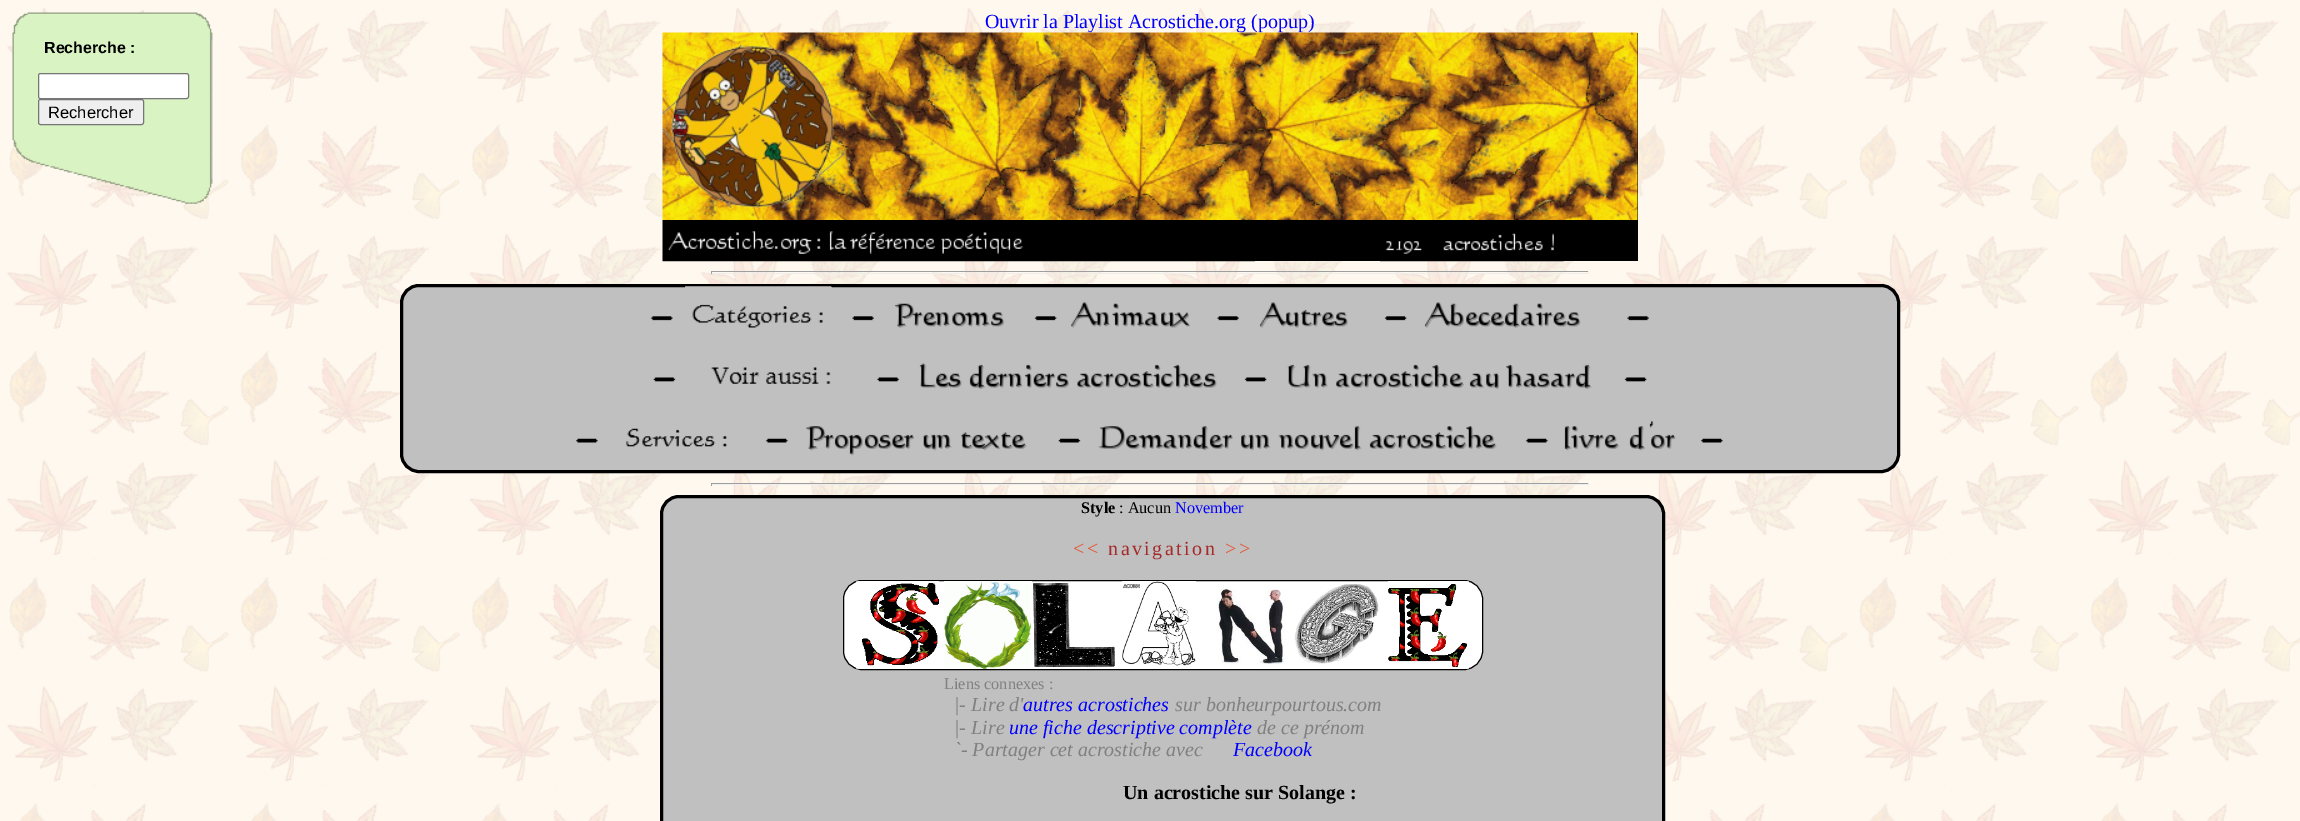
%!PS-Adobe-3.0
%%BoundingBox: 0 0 2300 821
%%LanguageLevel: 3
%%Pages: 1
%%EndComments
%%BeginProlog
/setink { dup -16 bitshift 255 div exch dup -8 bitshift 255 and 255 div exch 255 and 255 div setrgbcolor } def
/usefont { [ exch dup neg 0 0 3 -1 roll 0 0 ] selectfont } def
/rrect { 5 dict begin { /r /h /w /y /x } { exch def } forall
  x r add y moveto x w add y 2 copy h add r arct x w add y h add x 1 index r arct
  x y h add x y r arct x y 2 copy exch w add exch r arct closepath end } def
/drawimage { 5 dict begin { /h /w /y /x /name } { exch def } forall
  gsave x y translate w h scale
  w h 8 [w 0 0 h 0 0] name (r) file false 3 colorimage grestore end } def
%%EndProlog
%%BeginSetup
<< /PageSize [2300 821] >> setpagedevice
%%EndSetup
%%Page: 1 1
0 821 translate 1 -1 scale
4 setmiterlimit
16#FFFFFF setink
0 0 2300 821 rectfill
(img1.raw) 0 0 2300 821 drawimage
/LiberationSerif-Regular 20 usefont
16#0000FF setink
985 28 moveto (Ouvrir la Playlist Acrostiche.org \(popup\)) show
16#000000 setink
714 33 924 228 rectfill
(img2.raw) 662 32 976 188 drawimage
(img3.raw) 662 220 593 42 drawimage
(img4.raw) 1380 240 60 22 drawimage
(img5.raw) 1440 233 124 29 drawimage
[
    [711 271 878 1 16#9F9F9F]
    [1588 271 1 3 16#EEEEEE]
    [711 273 878 1 16#EEEEEE]
    [711 271 1 3 16#9F9F9F]
] { aload pop setink rectfill } forall
16#C0C0C0 setink
401.5 285.5 1497 186 17.5 rrect gsave fill grestore
16#000000 setink
3 setlinewidth
stroke
(img6.raw) 651 316 22 5 drawimage
(img7.raw) 685 286 147 42 drawimage
(img8.raw) 852 316 22 5 drawimage
(img9.raw) 894 303 110 25 drawimage
(img10.raw) 1034 316 23 5 drawimage
(img11.raw) 1071 302 120 26 drawimage
(img8.raw) 1217 316 22 5 drawimage
(img12.raw) 1259 302 89 26 drawimage
(img10.raw) 1384 316 23 5 drawimage
(img13.raw) 1424 302 157 26 drawimage
(img8.raw) 1627 316 22 5 drawimage
(img14.raw) 653 377 23 5 drawimage
(img15.raw) 711 367 120 17 drawimage
(img16.raw) 877 377 22 5 drawimage
(img17.raw) 919 363 298 26 drawimage
(img18.raw) 1244 377 23 5 drawimage
(img19.raw) 1287 364 305 25 drawimage
(img18.raw) 1624 377 23 5 drawimage
(img20.raw) 576 438 22 5 drawimage
(img21.raw) 626 428 101 19 drawimage
(img22.raw) 766 438 22 5 drawimage
(img23.raw) 806 426 221 30 drawimage
(img24.raw) 1058 438 23 5 drawimage
(img25.raw) 1098 426 399 25 drawimage
(img22.raw) 1526 438 22 5 drawimage
(img26.raw) 1564 421 112 30 drawimage
(img20.raw) 1701 438 22 5 drawimage
(img27.raw) 12 12 201 192 drawimage
/LiberationSans-Bold 16 usefont
44 53 moveto (Recherche :) show
16#FFFFFF setink
38.5 73.5 150 25 2 rrect gsave fill grestore
16#767676 setink
1 setlinewidth
stroke
16#EFEFEF setink
38.5 99.5 105 25 2 rrect gsave fill grestore
16#767676 setink
stroke
/LiberationSans-Regular 16.5 usefont
16#000000 setink
48 118 moveto (Rechercher) show
[
    [711 483 878 1 16#9F9F9F]
    [1588 483 1 3 16#EEEEEE]
    [711 484 878 1 16#EEEEEE]
    [711 483 1 3 16#9F9F9F]
] { aload pop setink rectfill } forall
16#C0C0C0 setink
661.5 496.5 1002 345 17.5 rrect gsave fill grestore
16#000000 setink
3 setlinewidth
stroke
/LiberationSerif-Bold 16.25 usefont
1081 513 moveto (Style) show
/LiberationSerif-Regular 16.25 usefont
1119 513 moveto (: Aucun) show
16#0000FF setink
1175 513 moveto (November) show
/LiberationSerif-Regular 20 usefont
16#E55632 setink
1073 555 moveto 2.5 0 (<<) ashow
16#A52A2A setink
1108 555 moveto 2.5 0 (navigation) ashow
16#E55632 setink
1225 555 moveto 2.5 0 (>>) ashow
16#FFFFFF setink
843.5 580.5 639 89 18.5 rrect gsave fill grestore
16#000000 setink
1 setlinewidth
stroke
(img28.raw) 856 581 83 88 drawimage
(img29.raw) 944 581 88 88 drawimage
(img30.raw) 1031 583 84 84 drawimage
(img31.raw) 1122 581 74 85 drawimage
(img32.raw) 1216 588 70 77 drawimage
(img33.raw) 1294 584 85 80 drawimage
(img34.raw) 1388 581 81 88 drawimage
/LiberationSerif-Regular 16.25 usefont
16#808080 setink
944 689 moveto (Liens connexes :) show
/LiberationSerif-Italic 20 usefont
954 711 moveto (|- Lire d') show
16#0000FF setink
1023 711 moveto (autres acrostiches) show
16#808080 setink
1175 711 moveto (sur bonheurpourtous.com) show
954 734 moveto (|- Lire) show
16#0000FF setink
1009 734 moveto (une fiche descriptive complète) show
16#808080 setink
1257 734 moveto (de ce prénom) show
954 756 moveto (`- Partager cet acrostiche avec) show
16#0000FF setink
1233 756 moveto (Facebook) show
/LiberationSerif-Bold 20 usefont
16#000000 setink
1123 799 moveto (Un acrostiche sur Solange :) show
showpage
%%EOF
